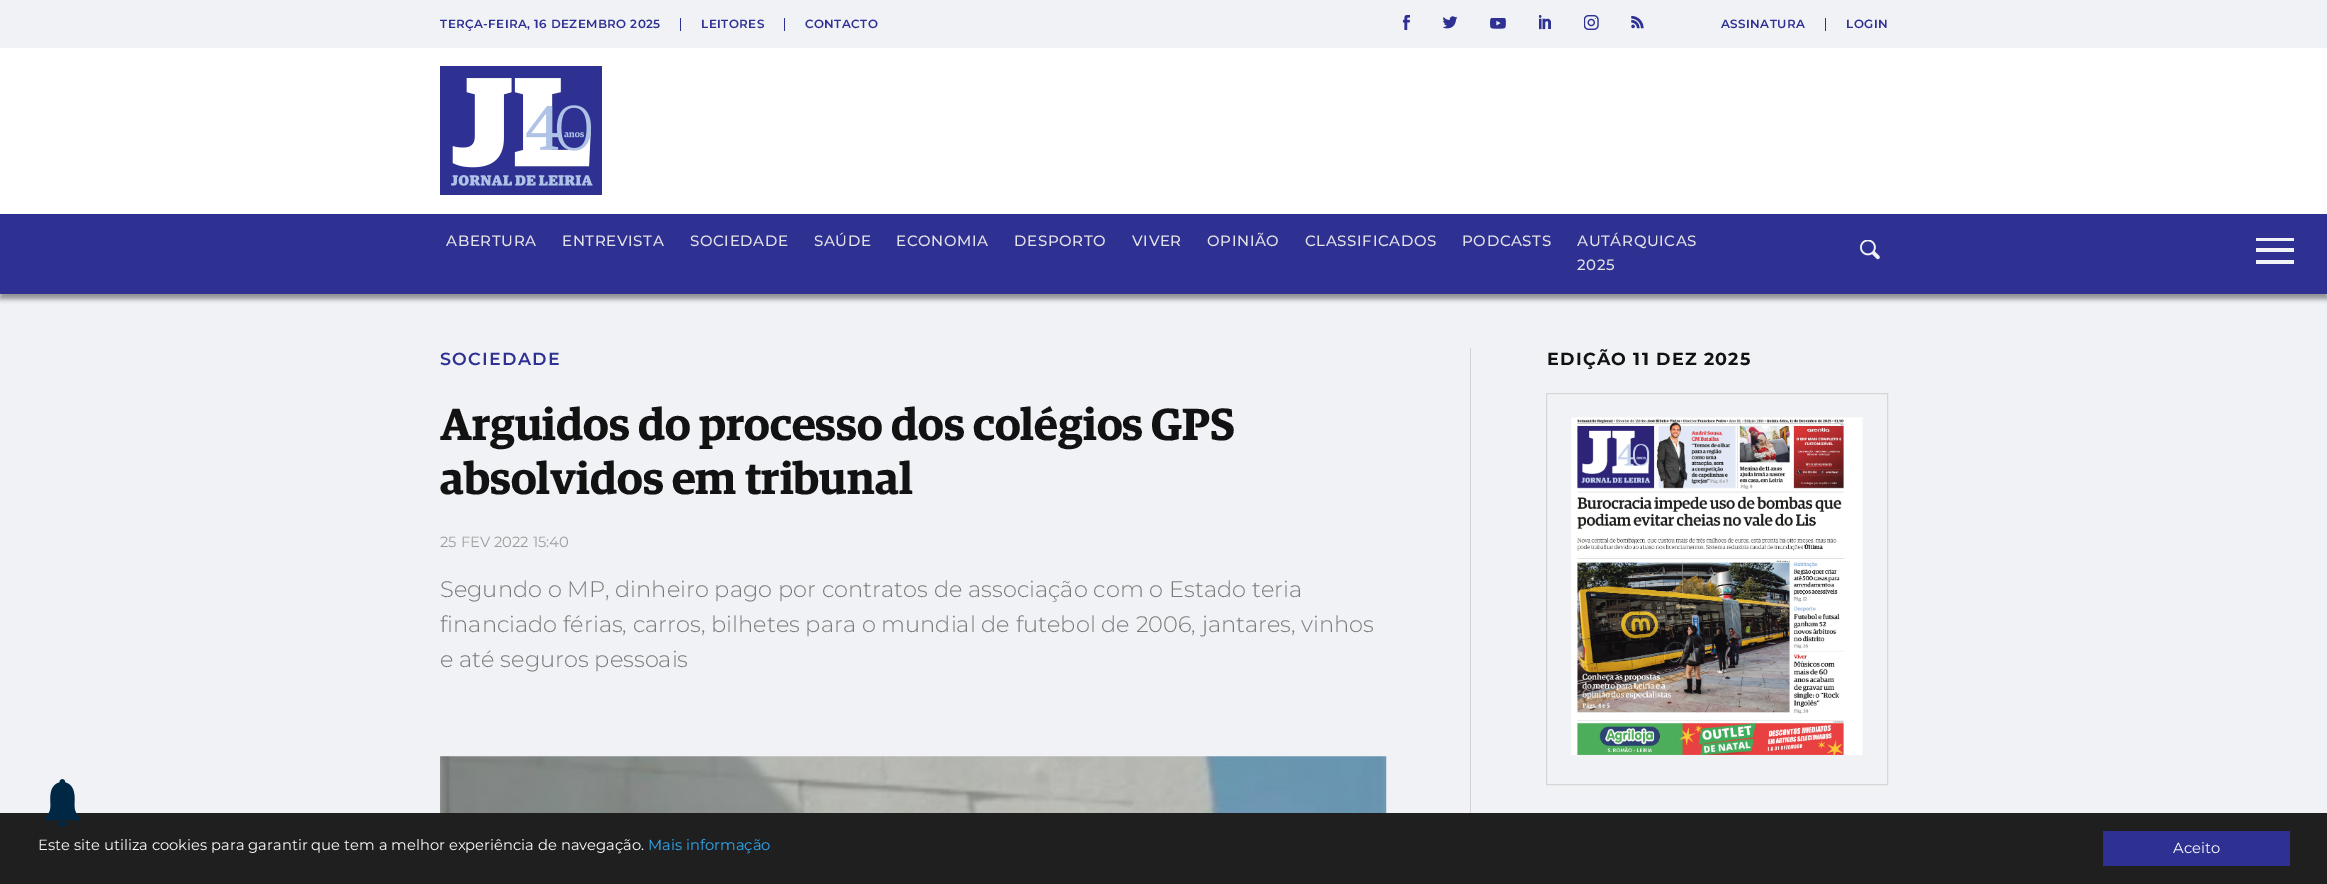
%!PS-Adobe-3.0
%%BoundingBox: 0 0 2327 884
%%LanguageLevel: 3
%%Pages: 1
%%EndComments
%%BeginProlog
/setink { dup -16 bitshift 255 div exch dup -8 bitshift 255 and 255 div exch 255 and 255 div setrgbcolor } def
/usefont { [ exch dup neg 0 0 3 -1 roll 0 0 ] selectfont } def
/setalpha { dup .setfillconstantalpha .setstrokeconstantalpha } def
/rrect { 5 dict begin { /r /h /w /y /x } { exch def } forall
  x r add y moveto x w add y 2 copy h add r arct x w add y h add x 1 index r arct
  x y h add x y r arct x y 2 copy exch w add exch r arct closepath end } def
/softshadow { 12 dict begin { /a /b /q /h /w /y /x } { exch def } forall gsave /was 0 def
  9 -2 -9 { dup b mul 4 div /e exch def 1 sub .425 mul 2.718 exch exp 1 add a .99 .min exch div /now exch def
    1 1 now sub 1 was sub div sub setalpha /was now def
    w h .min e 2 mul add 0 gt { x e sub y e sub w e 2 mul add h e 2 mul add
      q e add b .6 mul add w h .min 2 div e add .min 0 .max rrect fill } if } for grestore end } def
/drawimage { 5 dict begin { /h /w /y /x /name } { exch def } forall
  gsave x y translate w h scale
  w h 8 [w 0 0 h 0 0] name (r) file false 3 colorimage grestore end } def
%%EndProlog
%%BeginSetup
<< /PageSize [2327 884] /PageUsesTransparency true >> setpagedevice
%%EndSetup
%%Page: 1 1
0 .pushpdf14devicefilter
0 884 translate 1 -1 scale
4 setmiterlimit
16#F0F2F6 setink
0 0 2327 884 rectfill
/Montserrat-SemiBold 11.9 usefont
16#2E3092 setink
440 28 moveto 0.4 0 (TERÇA-FEIRA, 16 DEZEMBRO 2025) ashow
680 18 1 13 rectfill
784 18 1 13 rectfill
701 28 moveto 0.4 0 (LEITORES) ashow
805 28 moveto 0.4 0 (CONTACTO) ashow
(img1.raw) 1403 15 7 15 drawimage
(img2.raw) 1443 16 15 13 drawimage
(img3.raw) 1490 18 16 11 drawimage
(img4.raw) 1539 15 12 15 drawimage
(img5.raw) 1584 15 15 15 drawimage
(img6.raw) 1631 15 13 14 drawimage
1721 28 moveto 0.4 0 (ASSINATURA) ashow
1825 18 1 13 rectfill
1846 28 moveto 0.4 0 (LOGIN) ashow
16#000000 setink
0 214 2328 85 0 2.5 0.4 softshadow
16#FFFFFF setink
0 48 2327 166 rectfill
(img7.raw) 440 66 162 129 drawimage
16#2E3092 setink
0 214 2327 80 rectfill
/Montserrat-Medium 15 usefont
16#E2E2E6 setink
446 246 moveto 0.6 0 (ABERTURA) ashow
562 246 moveto 0.6 0 (ENTREVISTA) ashow
690 246 moveto 0.6 0 (SOCIEDADE) ashow
814 246 moveto 0.6 0 (SAÚDE) ashow
896 246 moveto 0.6 0 (ECONOMIA) ashow
1014 246 moveto 0.6 0 (DESPORTO) ashow
1132 246 moveto 0.6 0 (VIVER) ashow
1207 246 moveto 0.6 0 (OPINIÃO) ashow
1305 246 moveto 0.6 0 (CLASSIFICADOS) ashow
1462 246 moveto 0.6 0 (PODCASTS) ashow
1577 246 moveto 0.6 0 (AUTÁRQUICAS) ashow
1577 270 moveto 0.6 0 (2025) ashow
(img8.raw) 1860 240 20 20 drawimage
[
    [2256 260 38 4 16#F0F2F6]
    [2256 248 38 4 16#F0F2F6]
    [2256 238 38 3 16#F0F2F6]
] { aload pop setink rectfill } forall
/Montserrat-SemiBold 17.5 usefont
16#2E3092 setink
440 365 moveto 1.25 0 (SOCIEDADE) ashow
/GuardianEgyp-SemiBold 45 usefont
16#121212 setink
440 440 moveto (Arguidos do processo dos colégios GPS) show
440 494 moveto (absolvidos em tribunal) show
/Montserrat-Regular 14.75 usefont
16#9B9B9B setink
440 547 moveto (25 FEV 2022 15:40) show
/Montserrat-Light 22.5 usefont
16#7A7A7A setink
[
    [(Segundo o MP, dinheiro pago por contratos de associação com o Estado teria) 440 597]
    [(financiado férias, carros, bilhetes para o mundial de futebol de 2006, jantares, vinhos) 440 632]
    [(e até seguros pessoais) 440 667]
] { aload pop moveto show } forall
(img9.raw) 440 756 947 57 drawimage
16#D4D4D4 setink
1470 348 1 465 rectfill
/Montserrat-Bold 17.5 usefont
16#121212 setink
1547 365 moveto 1.25 0 (EDIÇÃO 11 DEZ 2025) ashow
16#D6D6D6 setink
1546.5 393.5 341 391 rectstroke
(img10.raw) 1571 417 292 338 drawimage
16#1F1F1F setink
0 813 2327 71 rectfill
(img11.raw) 45 779 35 48 drawimage
/Montserrat-Regular 14.75 usefont
16#FFFFFF setink
38 850 moveto (Este site utiliza cookies para garantir que tem a melhor experiência de navegação.) show
16#31A8F0 setink
648 850 moveto (Mais informação) show
16#2E3092 setink
2103 831 187 35 rectfill
16#FFFFFF setink
2173 853 moveto (Aceito) show
.poppdf14devicefilter showpage
%%EOF
